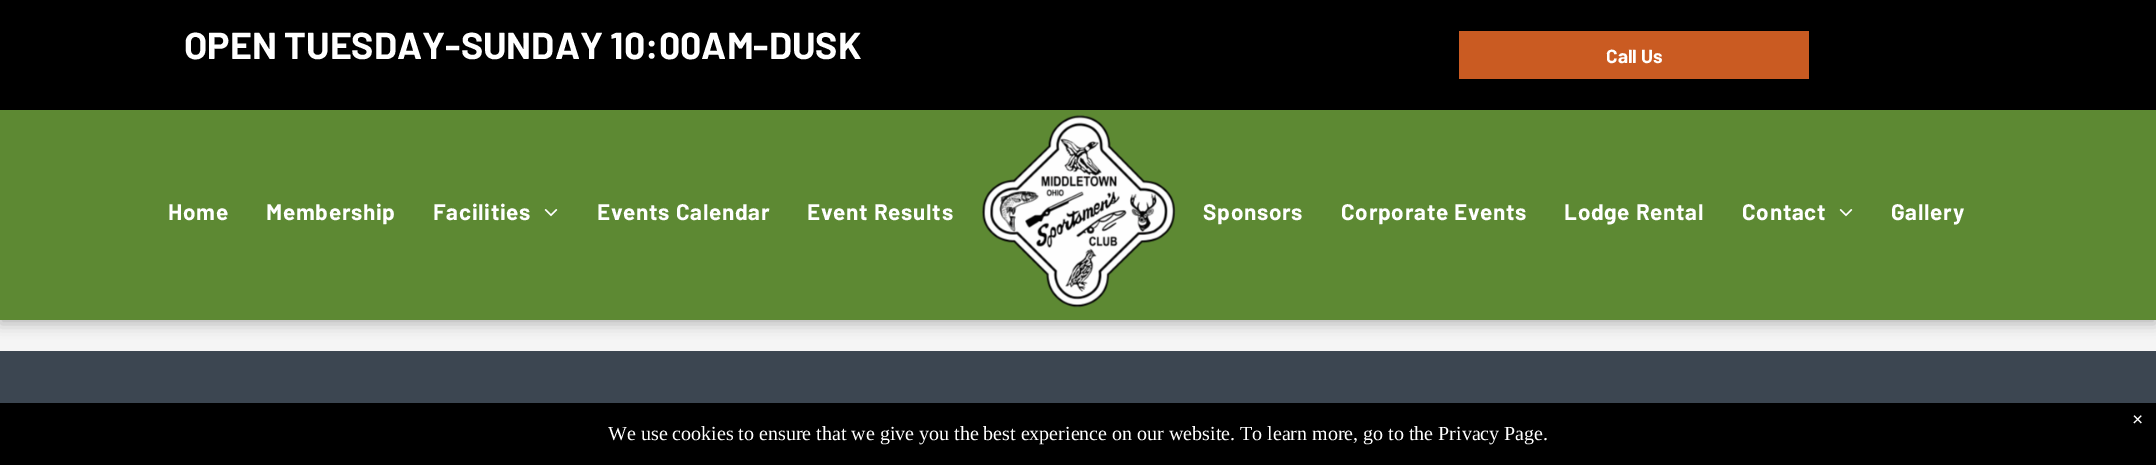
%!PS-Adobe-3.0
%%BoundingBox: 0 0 2156 465
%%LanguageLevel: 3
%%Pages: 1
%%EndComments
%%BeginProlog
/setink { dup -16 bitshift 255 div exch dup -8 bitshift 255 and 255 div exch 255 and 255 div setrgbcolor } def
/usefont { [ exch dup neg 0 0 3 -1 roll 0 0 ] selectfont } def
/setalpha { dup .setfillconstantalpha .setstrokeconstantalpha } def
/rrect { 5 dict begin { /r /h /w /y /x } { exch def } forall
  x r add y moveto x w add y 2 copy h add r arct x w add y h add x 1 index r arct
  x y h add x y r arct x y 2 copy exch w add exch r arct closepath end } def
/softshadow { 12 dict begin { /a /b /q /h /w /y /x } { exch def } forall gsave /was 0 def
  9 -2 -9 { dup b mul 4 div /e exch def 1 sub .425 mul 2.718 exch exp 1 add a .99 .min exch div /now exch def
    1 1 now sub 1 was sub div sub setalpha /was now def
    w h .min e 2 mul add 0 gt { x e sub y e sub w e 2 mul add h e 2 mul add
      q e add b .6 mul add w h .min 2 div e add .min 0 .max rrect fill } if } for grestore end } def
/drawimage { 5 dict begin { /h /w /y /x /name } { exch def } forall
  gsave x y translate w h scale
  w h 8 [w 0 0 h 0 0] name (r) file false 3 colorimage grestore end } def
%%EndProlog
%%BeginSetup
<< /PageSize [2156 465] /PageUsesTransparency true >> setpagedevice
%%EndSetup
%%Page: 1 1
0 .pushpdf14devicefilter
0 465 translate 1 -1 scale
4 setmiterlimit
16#F5F5F5 setink
0 0 2156 465 rectfill
16#000000 setink
0 4 2156 320 0 7 0.25 softshadow
16#5D8933 setink
0 110 2156 210 rectfill
16#000000 setink
0 0 2156 110 rectfill
/Barlow-Bold 37.5 usefont
16#FFFFFF setink
184 59 moveto (OPEN TUESDAY-SUNDAY 10:00AM-DUSK) show
16#CA5B22 setink
1459 31 350 48 rectfill
/Barlow-Bold 19 usefont
16#FFFFFF setink
1606 63 moveto (Call Us) show
/Barlow-Bold 22.5 usefont
168 220 moveto 0.7 0 (Home) ashow
266 220 moveto 0.7 0 (Membership) ashow
433 220 moveto 0.7 0 (Facilities) ashow
(img1.raw) 544 209 14 8 drawimage
597 220 moveto 0.7 0 (Events Calendar) ashow
807 220 moveto 0.7 0 (Event Results) ashow
(img2.raw) 982 115 194 193 drawimage
1203 220 moveto 0.7 0 (Sponsors) ashow
1341 220 moveto 0.7 0 (Corporate Events) ashow
1564 220 moveto 0.7 0 (Lodge Rental) ashow
1742 220 moveto 0.7 0 (Contact) ashow
(img1.raw) 1839 209 14 8 drawimage
1891 220 moveto 0.7 0 (Gallery) ashow
16#3C4651 setink
0 351 2156 52 rectfill
16#000000 setink
0 403 2156 62 rectfill
/LiberationSerif-Bold 20 usefont
16#FFFFFF setink
2132 426 moveto (×) show
/LiberationSerif-Regular 20 usefont
608 440 moveto (We use cookies to ensure that we give you the best experience on our website. To learn more, go to the Privacy Page.) show
.poppdf14devicefilter showpage
%%EOF
